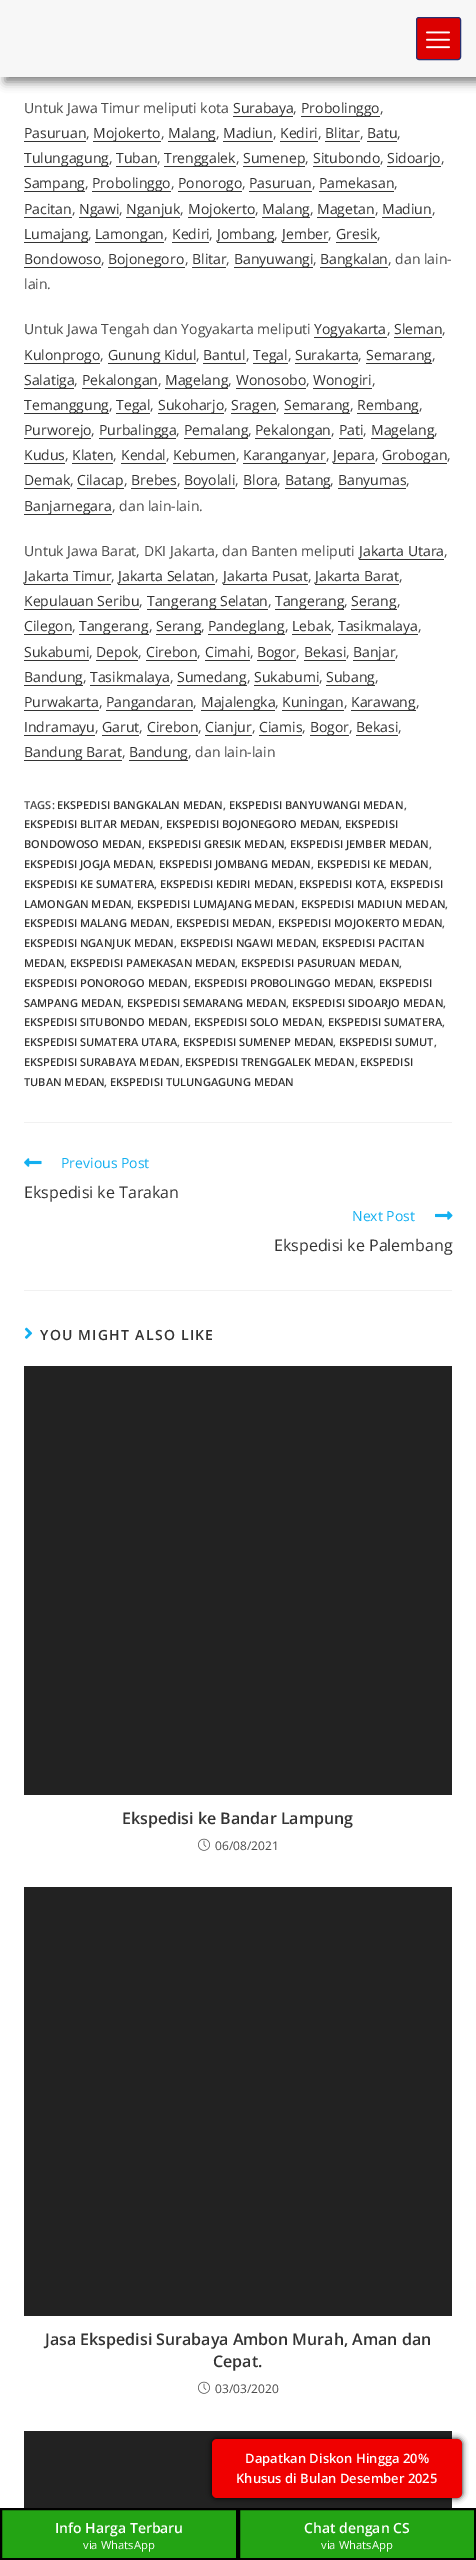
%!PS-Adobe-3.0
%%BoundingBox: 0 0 476 2560
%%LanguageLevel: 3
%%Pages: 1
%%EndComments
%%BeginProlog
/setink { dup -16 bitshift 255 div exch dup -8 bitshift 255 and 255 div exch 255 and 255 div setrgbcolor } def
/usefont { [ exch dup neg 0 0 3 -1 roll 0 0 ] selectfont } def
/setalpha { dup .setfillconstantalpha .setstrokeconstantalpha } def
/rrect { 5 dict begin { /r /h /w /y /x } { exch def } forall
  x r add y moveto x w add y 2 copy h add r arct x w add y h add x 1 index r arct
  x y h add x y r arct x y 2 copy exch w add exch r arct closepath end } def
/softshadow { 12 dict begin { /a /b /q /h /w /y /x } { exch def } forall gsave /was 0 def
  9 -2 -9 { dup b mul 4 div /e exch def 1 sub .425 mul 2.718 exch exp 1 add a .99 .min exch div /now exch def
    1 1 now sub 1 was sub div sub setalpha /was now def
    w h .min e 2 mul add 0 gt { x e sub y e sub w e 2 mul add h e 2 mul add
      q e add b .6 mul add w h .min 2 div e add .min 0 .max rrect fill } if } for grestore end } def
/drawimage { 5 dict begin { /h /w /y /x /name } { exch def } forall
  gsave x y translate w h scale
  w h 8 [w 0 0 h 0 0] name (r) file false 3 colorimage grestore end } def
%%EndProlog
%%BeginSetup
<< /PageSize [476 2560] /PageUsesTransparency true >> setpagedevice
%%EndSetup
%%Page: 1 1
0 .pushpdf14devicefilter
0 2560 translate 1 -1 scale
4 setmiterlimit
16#FFFFFF setink
0 0 476 2560 rectfill
/OpenSans-Regular 14 usefont
16#4A4A4A setink
24 113 moveto (Untuk Jawa Timur meliputi kota) show
16#333333 setink
233 116 60 1 rectfill
233 113 moveto (Surabaya) show
16#4A4A4A setink
293 113 moveto (,) show
16#333333 setink
301 116 79 1 rectfill
301 113 moveto (Probolinggo) show
16#4A4A4A setink
380 113 moveto (,) show
16#333333 setink
24 138 moveto (Pasuruan) show
24 141 62 1 rectfill
16#4A4A4A setink
86 138 moveto (,) show
16#333333 setink
93 141 68 1 rectfill
93 138 moveto (Mojokerto) show
16#4A4A4A setink
161 138 moveto (,) show
16#333333 setink
168 141 48 1 rectfill
168 138 moveto (Malang) show
16#4A4A4A setink
216 138 moveto (,) show
16#333333 setink
223 138 moveto (Madiun) show
223 141 50 1 rectfill
16#4A4A4A setink
273 138 moveto (,) show
16#333333 setink
280 138 moveto (Kediri) show
280 141 38 1 rectfill
16#4A4A4A setink
318 138 moveto (,) show
16#333333 setink
325 138 moveto (Blitar) show
325 141 35 1 rectfill
16#4A4A4A setink
360 138 moveto (,) show
16#333333 setink
367 138 moveto (Batu) show
367 141 30 1 rectfill
16#4A4A4A setink
397 138 moveto (,) show
16#333333 setink
24 166 85 1 rectfill
24 163 moveto (Tulungagung) show
16#4A4A4A setink
109 163 moveto (,) show
16#333333 setink
116 163 moveto (Tuban) show
116 166 41 1 rectfill
16#4A4A4A setink
157 163 moveto (,) show
16#333333 setink
164 166 72 1 rectfill
164 163 moveto (Trenggalek) show
16#4A4A4A setink
236 163 moveto (,) show
16#333333 setink
243 166 62 1 rectfill
243 163 moveto (Sumenep) show
16#4A4A4A setink
305 163 moveto (,) show
16#333333 setink
313 163 moveto (Situbondo) show
313 166 67 1 rectfill
16#4A4A4A setink
380 163 moveto (,) show
16#333333 setink
387 166 54 1 rectfill
387 163 moveto (Sidoarjo) show
16#4A4A4A setink
441 163 moveto (,) show
16#333333 setink
24 191 61 1 rectfill
24 188 moveto (Sampang) show
16#4A4A4A setink
85 188 moveto (,) show
16#333333 setink
92 191 79 1 rectfill
92 188 moveto (Probolinggo) show
16#4A4A4A setink
171 188 moveto (,) show
16#333333 setink
178 191 64 1 rectfill
178 188 moveto (Ponorogo) show
16#4A4A4A setink
242 188 moveto (,) show
16#333333 setink
249 188 moveto (Pasuruan) show
249 191 63 1 rectfill
16#4A4A4A setink
312 188 moveto (,) show
16#333333 setink
319 188 moveto (Pamekasan) show
319 191 75 1 rectfill
16#4A4A4A setink
394 188 moveto (,) show
16#333333 setink
24 214 moveto (Pacitan) show
24 217 48 1 rectfill
16#4A4A4A setink
72 214 moveto (,) show
16#333333 setink
79 217 40 1 rectfill
79 214 moveto (Ngawi) show
16#4A4A4A setink
119 214 moveto (,) show
16#333333 setink
126 217 54 1 rectfill
126 214 moveto (Nganjuk) show
16#4A4A4A setink
180 214 moveto (,) show
16#333333 setink
188 217 67 1 rectfill
188 214 moveto (Mojokerto) show
16#4A4A4A setink
255 214 moveto (,) show
16#333333 setink
262 217 48 1 rectfill
262 214 moveto (Malang) show
16#4A4A4A setink
310 214 moveto (,) show
16#333333 setink
317 217 58 1 rectfill
317 214 moveto (Magetan) show
16#4A4A4A setink
375 214 moveto (,) show
16#333333 setink
382 214 moveto (Madiun) show
382 217 50 1 rectfill
16#4A4A4A setink
432 214 moveto (,) show
16#333333 setink
24 242 64 1 rectfill
24 239 moveto (Lumajang) show
16#4A4A4A setink
88 239 moveto (,) show
16#333333 setink
95 242 69 1 rectfill
95 239 moveto (Lamongan) show
16#4A4A4A setink
164 239 moveto (,) show
16#333333 setink
172 239 moveto (Kediri) show
172 242 37 1 rectfill
16#4A4A4A setink
209 239 moveto (,) show
16#333333 setink
217 242 57 1 rectfill
217 239 moveto (Jombang) show
16#4A4A4A setink
274 239 moveto (,) show
16#333333 setink
282 239 moveto (Jember) show
282 242 46 1 rectfill
16#4A4A4A setink
328 239 moveto (,) show
16#333333 setink
336 239 moveto (Gresik) show
336 242 41 1 rectfill
16#4A4A4A setink
377 239 moveto (,) show
16#333333 setink
24 264 moveto (Bondowoso) show
24 267 77 1 rectfill
16#4A4A4A setink
101 264 moveto (,) show
16#333333 setink
108 267 77 1 rectfill
108 264 moveto (Bojonegoro) show
16#4A4A4A setink
185 264 moveto (,) show
16#333333 setink
192 264 moveto (Blitar) show
192 267 34 1 rectfill
16#4A4A4A setink
226 264 moveto (,) show
16#333333 setink
234 267 79 1 rectfill
234 264 moveto (Banyuwangi) show
16#4A4A4A setink
313 264 moveto (,) show
16#333333 setink
320 267 68 1 rectfill
320 264 moveto (Bangkalan) show
16#4A4A4A setink
[
    [(, dan lain-) 388 264]
    [(lain.) 24 289]
    [(Untuk Jawa Tengah dan Yogyakarta meliputi) 24 334]
] { aload pop moveto show } forall
16#333333 setink
314 337 73 1 rectfill
314 334 moveto (Yogyakarta) show
16#4A4A4A setink
387 334 moveto (,) show
16#333333 setink
394 334 moveto (Sleman) show
394 337 48 1 rectfill
16#4A4A4A setink
442 334 moveto (,) show
16#333333 setink
24 363 76 1 rectfill
24 360 moveto (Kulonprogo) show
16#4A4A4A setink
100 360 moveto (,) show
16#333333 setink
108 363 88 1 rectfill
108 360 moveto (Gunung Kidul) show
16#4A4A4A setink
196 360 moveto (,) show
16#333333 setink
203 360 moveto (Bantul) show
203 363 43 1 rectfill
16#4A4A4A setink
246 360 moveto (,) show
16#333333 setink
253 363 35 1 rectfill
253 360 moveto (Tegal) show
16#4A4A4A setink
288 360 moveto (,) show
16#333333 setink
295 360 moveto (Surakarta) show
295 363 63 1 rectfill
16#4A4A4A setink
358 360 moveto (,) show
16#333333 setink
366 363 66 1 rectfill
366 360 moveto (Semarang) show
16#4A4A4A setink
432 360 moveto (,) show
16#333333 setink
24 388 50 1 rectfill
24 385 moveto (Salatiga) show
16#4A4A4A setink
74 385 moveto (,) show
16#333333 setink
82 388 76 1 rectfill
82 385 moveto (Pekalongan) show
16#4A4A4A setink
158 385 moveto (,) show
16#333333 setink
165 388 63 1 rectfill
165 385 moveto (Magelang) show
16#4A4A4A setink
228 385 moveto (,) show
16#333333 setink
236 385 moveto (Wonosobo) show
236 388 70 1 rectfill
16#4A4A4A setink
306 385 moveto (,) show
16#333333 setink
313 388 59 1 rectfill
313 385 moveto (Wonogiri) show
16#4A4A4A setink
372 385 moveto (,) show
16#333333 setink
24 413 85 1 rectfill
24 410 moveto (Temanggung) show
16#4A4A4A setink
109 410 moveto (,) show
16#333333 setink
116 413 34 1 rectfill
116 410 moveto (Tegal) show
16#4A4A4A setink
150 410 moveto (,) show
16#333333 setink
158 413 66 1 rectfill
158 410 moveto (Sukoharjo) show
16#4A4A4A setink
224 410 moveto (,) show
16#333333 setink
231 413 45 1 rectfill
231 410 moveto (Sragen) show
16#4A4A4A setink
276 410 moveto (,) show
16#333333 setink
284 413 66 1 rectfill
284 410 moveto (Semarang) show
16#4A4A4A setink
350 410 moveto (,) show
16#333333 setink
357 413 62 1 rectfill
357 410 moveto (Rembang) show
16#4A4A4A setink
419 410 moveto (,) show
16#333333 setink
24 438 67 1 rectfill
24 435 moveto (Purworejo) show
16#4A4A4A setink
91 435 moveto (,) show
16#333333 setink
99 438 77 1 rectfill
99 435 moveto (Purbalingga) show
16#4A4A4A setink
176 435 moveto (,) show
16#333333 setink
184 438 64 1 rectfill
184 435 moveto (Pemalang) show
16#4A4A4A setink
248 435 moveto (,) show
16#333333 setink
255 438 76 1 rectfill
255 435 moveto (Pekalongan) show
16#4A4A4A setink
331 435 moveto (,) show
16#333333 setink
339 435 moveto (Pati) show
339 438 24 1 rectfill
16#4A4A4A setink
363 435 moveto (,) show
16#333333 setink
371 438 63 1 rectfill
371 435 moveto (Magelang) show
16#4A4A4A setink
434 435 moveto (,) show
16#333333 setink
24 460 moveto (Kudus) show
24 463 41 1 rectfill
16#4A4A4A setink
65 460 moveto (,) show
16#333333 setink
72 460 moveto (Klaten) show
72 463 41 1 rectfill
16#4A4A4A setink
113 460 moveto (,) show
16#333333 setink
121 460 moveto (Kendal) show
121 463 45 1 rectfill
16#4A4A4A setink
166 460 moveto (,) show
16#333333 setink
173 460 moveto (Kebumen) show
173 463 63 1 rectfill
16#4A4A4A setink
236 460 moveto (,) show
16#333333 setink
243 463 83 1 rectfill
243 460 moveto (Karanganyar) show
16#4A4A4A setink
326 460 moveto (,) show
16#333333 setink
333 463 42 1 rectfill
333 460 moveto (Jepara) show
16#4A4A4A setink
375 460 moveto (,) show
16#333333 setink
382 463 65 1 rectfill
382 460 moveto (Grobogan) show
16#4A4A4A setink
447 460 moveto (,) show
16#333333 setink
24 485 moveto (Demak) show
24 488 46 1 rectfill
16#4A4A4A setink
70 485 moveto (,) show
16#333333 setink
77 488 47 1 rectfill
77 485 moveto (Cilacap) show
16#4A4A4A setink
124 485 moveto (,) show
16#333333 setink
131 485 moveto (Brebes) show
131 488 46 1 rectfill
16#4A4A4A setink
177 485 moveto (,) show
16#333333 setink
184 488 51 1 rectfill
184 485 moveto (Boyolali) show
16#4A4A4A setink
235 485 moveto (,) show
16#333333 setink
243 485 moveto (Blora) show
243 488 34 1 rectfill
16#4A4A4A setink
277 485 moveto (,) show
16#333333 setink
285 488 45 1 rectfill
285 485 moveto (Batang) show
16#4A4A4A setink
330 485 moveto (,) show
16#333333 setink
338 488 68 1 rectfill
338 485 moveto (Banyumas) show
16#4A4A4A setink
406 485 moveto (,) show
16#333333 setink
24 514 88 1 rectfill
24 511 moveto (Banjarnegara) show
16#4A4A4A setink
112 511 moveto (, dan lain-lain.) show
24 556 moveto (Untuk Jawa Barat, DKI Jakarta, dan Banten meliputi) show
16#333333 setink
359 556 moveto (Jakarta Utara) show
359 559 85 1 rectfill
16#4A4A4A setink
444 556 moveto (,) show
16#333333 setink
24 581 moveto (Jakarta Timur) show
24 584 87 1 rectfill
16#4A4A4A setink
111 581 moveto (,) show
16#333333 setink
118 581 moveto (Jakarta Selatan) show
118 584 97 1 rectfill
16#4A4A4A setink
215 581 moveto (,) show
16#333333 setink
223 581 moveto (Jakarta Pusat) show
223 584 85 1 rectfill
16#4A4A4A setink
308 581 moveto (,) show
16#333333 setink
315 581 moveto (Jakarta Barat) show
315 584 84 1 rectfill
16#4A4A4A setink
399 581 moveto (,) show
16#333333 setink
24 609 115 1 rectfill
24 606 moveto (Kepulauan Seribu) show
16#4A4A4A setink
139 606 moveto (,) show
16#333333 setink
147 609 121 1 rectfill
147 606 moveto (Tangerang Selatan) show
16#4A4A4A setink
268 606 moveto (,) show
16#333333 setink
275 609 69 1 rectfill
275 606 moveto (Tangerang) show
16#4A4A4A setink
344 606 moveto (,) show
16#333333 setink
351 609 46 1 rectfill
351 606 moveto (Serang) show
16#4A4A4A setink
397 606 moveto (,) show
16#333333 setink
24 634 48 1 rectfill
24 631 moveto (Cilegon) show
16#4A4A4A setink
72 631 moveto (,) show
16#333333 setink
79 634 70 1 rectfill
79 631 moveto (Tangerang) show
16#4A4A4A setink
149 631 moveto (,) show
16#333333 setink
156 634 45 1 rectfill
156 631 moveto (Serang) show
16#4A4A4A setink
201 631 moveto (,) show
16#333333 setink
208 634 77 1 rectfill
208 631 moveto (Pandeglang) show
16#4A4A4A setink
285 631 moveto (,) show
16#333333 setink
292 631 moveto (Lebak) show
292 634 39 1 rectfill
16#4A4A4A setink
331 631 moveto (,) show
16#333333 setink
338 634 80 1 rectfill
338 631 moveto (Tasikmalaya) show
16#4A4A4A setink
418 631 moveto (,) show
16#333333 setink
24 657 moveto (Sukabumi) show
24 660 65 1 rectfill
16#4A4A4A setink
89 657 moveto (,) show
16#333333 setink
96 660 42 1 rectfill
96 657 moveto (Depok) show
16#4A4A4A setink
138 657 moveto (,) show
16#333333 setink
146 657 moveto (Cirebon) show
146 660 51 1 rectfill
16#4A4A4A setink
197 657 moveto (,) show
16#333333 setink
205 657 moveto (Cimahi) show
205 660 45 1 rectfill
16#4A4A4A setink
250 657 moveto (,) show
16#333333 setink
257 660 39 1 rectfill
257 657 moveto (Bogor) show
16#4A4A4A setink
296 657 moveto (,) show
16#333333 setink
304 657 moveto (Bekasi) show
304 660 42 1 rectfill
16#4A4A4A setink
346 657 moveto (,) show
16#333333 setink
353 660 42 1 rectfill
353 657 moveto (Banjar) show
16#4A4A4A setink
395 657 moveto (,) show
16#333333 setink
24 685 59 1 rectfill
24 682 moveto (Bandung) show
16#4A4A4A setink
83 682 moveto (,) show
16#333333 setink
90 685 80 1 rectfill
90 682 moveto (Tasikmalaya) show
16#4A4A4A setink
170 682 moveto (,) show
16#333333 setink
177 685 70 1 rectfill
177 682 moveto (Sumedang) show
16#4A4A4A setink
247 682 moveto (,) show
16#333333 setink
254 682 moveto (Sukabumi) show
254 685 65 1 rectfill
16#4A4A4A setink
319 682 moveto (,) show
16#333333 setink
326 685 49 1 rectfill
326 682 moveto (Subang) show
16#4A4A4A setink
375 682 moveto (,) show
16#333333 setink
24 707 moveto (Purwakarta) show
24 710 75 1 rectfill
16#4A4A4A setink
99 707 moveto (,) show
16#333333 setink
106 710 87 1 rectfill
106 707 moveto (Pangandaran) show
16#4A4A4A setink
193 707 moveto (,) show
16#333333 setink
201 710 74 1 rectfill
201 707 moveto (Majalengka) show
16#4A4A4A setink
275 707 moveto (,) show
16#333333 setink
282 710 62 1 rectfill
282 707 moveto (Kuningan) show
16#4A4A4A setink
344 707 moveto (,) show
16#333333 setink
351 710 65 1 rectfill
351 707 moveto (Karawang) show
16#4A4A4A setink
416 707 moveto (,) show
16#333333 setink
24 735 71 1 rectfill
24 732 moveto (Indramayu) show
16#4A4A4A setink
95 732 moveto (,) show
16#333333 setink
102 732 moveto (Garut) show
102 735 37 1 rectfill
16#4A4A4A setink
139 732 moveto (,) show
16#333333 setink
147 732 moveto (Cirebon) show
147 735 51 1 rectfill
16#4A4A4A setink
198 732 moveto (,) show
16#333333 setink
205 735 47 1 rectfill
205 732 moveto (Cianjur) show
16#4A4A4A setink
252 732 moveto (,) show
16#333333 setink
259 732 moveto (Ciamis) show
259 735 43 1 rectfill
16#4A4A4A setink
302 732 moveto (,) show
16#333333 setink
310 735 39 1 rectfill
310 732 moveto (Bogor) show
16#4A4A4A setink
349 732 moveto (,) show
16#333333 setink
356 732 moveto (Bekasi) show
356 735 42 1 rectfill
16#4A4A4A setink
398 732 moveto (,) show
16#333333 setink
24 760 98 1 rectfill
24 757 moveto (Bandung Barat) show
16#4A4A4A setink
122 757 moveto (,) show
16#333333 setink
129 760 59 1 rectfill
129 757 moveto (Bandung) show
16#4A4A4A setink
188 757 moveto (, dan lain-lain) show
/OpenSans-SemiBold 11 usefont
24 809 moveto (TAGS:) show
16#333333 setink
57 809 moveto (EKSPEDISI BANGKALAN MEDAN) show
16#4A4A4A setink
223 809 moveto (,) show
16#333333 setink
229 809 moveto (EKSPEDISI BANYUWANGI MEDAN) show
16#4A4A4A setink
404 809 moveto (,) show
16#333333 setink
24 828 moveto (EKSPEDISI BLITAR MEDAN) show
16#4A4A4A setink
160 828 moveto (,) show
16#333333 setink
166 828 moveto (EKSPEDISI BOJONEGORO MEDAN) show
16#4A4A4A setink
339 828 moveto (,) show
16#333333 setink
345 828 moveto (EKSPEDISI) show
24 848 moveto (BONDOWOSO MEDAN) show
16#4A4A4A setink
142 848 moveto (,) show
16#333333 setink
148 848 moveto (EKSPEDISI GRESIK MEDAN) show
16#4A4A4A setink
284 848 moveto (,) show
16#333333 setink
290 848 moveto (EKSPEDISI JEMBER MEDAN) show
16#4A4A4A setink
429 848 moveto (,) show
16#333333 setink
24 868 moveto (EKSPEDISI JOGJA MEDAN) show
16#4A4A4A setink
153 868 moveto (,) show
16#333333 setink
159 868 moveto (EKSPEDISI JOMBANG MEDAN) show
16#4A4A4A setink
311 868 moveto (,) show
16#333333 setink
317 868 moveto (EKSPEDISI KE MEDAN) show
16#4A4A4A setink
429 868 moveto (,) show
16#333333 setink
24 888 moveto (EKSPEDISI KE SUMATERA) show
16#4A4A4A setink
154 888 moveto (,) show
16#333333 setink
160 888 moveto (EKSPEDISI KEDIRI MEDAN) show
16#4A4A4A setink
294 888 moveto (,) show
16#333333 setink
299 888 moveto (EKSPEDISI KOTA) show
16#4A4A4A setink
384 888 moveto (,) show
16#333333 setink
390 888 moveto (EKSPEDISI) show
24 908 moveto (LAMONGAN MEDAN) show
16#4A4A4A setink
131 908 moveto (,) show
16#333333 setink
137 908 moveto (EKSPEDISI LUMAJANG MEDAN) show
16#4A4A4A setink
295 908 moveto (,) show
16#333333 setink
301 908 moveto (EKSPEDISI MADIUN MEDAN) show
16#4A4A4A setink
445 908 moveto (,) show
16#333333 setink
24 927 moveto (EKSPEDISI MALANG MEDAN) show
16#4A4A4A setink
170 927 moveto (,) show
16#333333 setink
176 927 moveto (EKSPEDISI MEDAN) show
16#4A4A4A setink
272 927 moveto (,) show
16#333333 setink
278 927 moveto (EKSPEDISI MOJOKERTO MEDAN) show
16#4A4A4A setink
442 927 moveto (,) show
16#333333 setink
24 947 moveto (EKSPEDISI NGANJUK MEDAN) show
16#4A4A4A setink
174 947 moveto (,) show
16#333333 setink
180 947 moveto (EKSPEDISI NGAWI MEDAN) show
16#4A4A4A setink
316 947 moveto (,) show
16#333333 setink
322 947 moveto (EKSPEDISI PACITAN) show
24 967 moveto (MEDAN) show
16#4A4A4A setink
64 967 moveto (,) show
16#333333 setink
70 967 moveto (EKSPEDISI PAMEKASAN MEDAN) show
16#4A4A4A setink
235 967 moveto (,) show
16#333333 setink
241 967 moveto (EKSPEDISI PASURUAN MEDAN) show
16#4A4A4A setink
399 967 moveto (,) show
16#333333 setink
24 987 moveto (EKSPEDISI PONOROGO MEDAN) show
16#4A4A4A setink
188 987 moveto (,) show
16#333333 setink
194 987 moveto (EKSPEDISI PROBOLINGGO MEDAN) show
16#4A4A4A setink
373 987 moveto (,) show
16#333333 setink
379 987 moveto (EKSPEDISI) show
24 1007 moveto (SAMPANG MEDAN) show
16#4A4A4A setink
121 1007 moveto (,) show
16#333333 setink
127 1007 moveto (EKSPEDISI SEMARANG MEDAN) show
16#4A4A4A setink
286 1007 moveto (,) show
16#333333 setink
292 1007 moveto (EKSPEDISI SIDOARJO MEDAN) show
16#4A4A4A setink
443 1007 moveto (,) show
16#333333 setink
24 1026 moveto (EKSPEDISI SITUBONDO MEDAN) show
16#4A4A4A setink
188 1026 moveto (,) show
16#333333 setink
194 1026 moveto (EKSPEDISI SOLO MEDAN) show
16#4A4A4A setink
322 1026 moveto (,) show
16#333333 setink
328 1026 moveto (EKSPEDISI SUMATERA) show
16#4A4A4A setink
442 1026 moveto (,) show
16#333333 setink
24 1046 moveto (EKSPEDISI SUMATERA UTARA) show
16#4A4A4A setink
177 1046 moveto (,) show
16#333333 setink
183 1046 moveto (EKSPEDISI SUMENEP MEDAN) show
16#4A4A4A setink
333 1046 moveto (,) show
16#333333 setink
339 1046 moveto (EKSPEDISI SUMUT) show
16#4A4A4A setink
434 1046 moveto (,) show
16#333333 setink
24 1066 moveto (EKSPEDISI SURABAYA MEDAN) show
16#4A4A4A setink
180 1066 moveto (,) show
16#333333 setink
185 1066 moveto (EKSPEDISI TRENGGALEK MEDAN) show
16#4A4A4A setink
355 1066 moveto (,) show
16#333333 setink
360 1066 moveto (EKSPEDISI) show
24 1086 moveto (TUBAN MEDAN) show
16#4A4A4A setink
104 1086 moveto (,) show
16#333333 setink
110 1086 moveto (EKSPEDISI TULUNGAGUNG MEDAN) show
16#F1F1F1 setink
24 1122 428 1 rectfill
(img1.raw) 24 1158 18 9 drawimage
/OpenSans-Regular 14 usefont
16#13AFF0 setink
61 1168 moveto (Previous Post) show
/OpenSans-Regular 16 usefont
16#333333 setink
24 1198 moveto (Ekspedisi ke Tarakan) show
/OpenSans-Regular 14 usefont
16#13AFF0 setink
352 1221 moveto (Next Post) show
(img2.raw) 435 1211 18 9 drawimage
/OpenSans-Regular 16 usefont
16#333333 setink
274 1251 moveto (Ekspedisi ke Palembang) show
16#F1F1F1 setink
24 1290 428 1 rectfill
(img3.raw) 24 1327 9 12 drawimage
/OpenSans-SemiBold 14 usefont
16#333333 setink
40 1340 moveto 1.25 0 (YOU MIGHT ALSO LIKE) ashow
16#222222 setink
24 1366 428 429 rectfill
/OpenSans-SemiBold 16 usefont
16#333333 setink
122 1824 moveto (Ekspedisi ke Bandar Lampung) show
(img4.raw) 198 1838 12 13 drawimage
/OpenSans-Regular 12 usefont
16#4A4A4A setink
215 1850 moveto (06/08/2021) show
16#222222 setink
24 1887 428 429 rectfill
/OpenSans-SemiBold 16 usefont
16#333333 setink
45 2345 moveto (Jasa Ekspedisi Surabaya Ambon Murah, Aman dan) show
213 2367 moveto (Cepat.) show
(img4.raw) 198 2381 12 13 drawimage
/OpenSans-Regular 12 usefont
16#4A4A4A setink
215 2393 moveto (03/03/2020) show
16#222222 setink
24 2431 428 77 rectfill
16#000000 setink
212 2439 250 59 5 3 1 softshadow
16#F00000 setink
212 2439 250 59 5 rrect fill
/OpenSans-SemiBold 13 usefont
16#FFFFFF setink
245 2463 moveto (Dapatkan Diskon Hingga 20%) show
236 2483 moveto (Khusus di Bulan Desember 2025) show
16#000000 setink
5 5 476 77 0 5 0.5 softshadow
16#F7F7F7 setink
0 0 476 77 rectfill
16#DC0000 setink
416.5 17.5 44 42 2.5 rrect gsave fill grestore
16#273171 setink
stroke
(img5.raw) 426 31 24 18 drawimage
16#23A414 setink
1 2509 moveto 237 2509 lineto 237 2559 lineto 1 2559 lineto closepath gsave fill grestore
16#000000 setink
2 setlinewidth
stroke
/OpenSans-SemiBold 14 usefont
16#FFFFFF setink
55 2533 moveto (Info Harga Terbaru) show
/OpenSans-Regular 11.25 usefont
83 2549 moveto (via WhatsApp) show
16#23A414 setink
239 2509 moveto 475 2509 lineto 475 2559 lineto 239 2559 lineto closepath gsave fill grestore
16#000000 setink
stroke
/OpenSans-SemiBold 14 usefont
16#FFFFFF setink
304 2533 moveto (Chat dengan CS) show
/OpenSans-Regular 11.25 usefont
321 2549 moveto (via WhatsApp) show
.poppdf14devicefilter showpage
%%EOF
